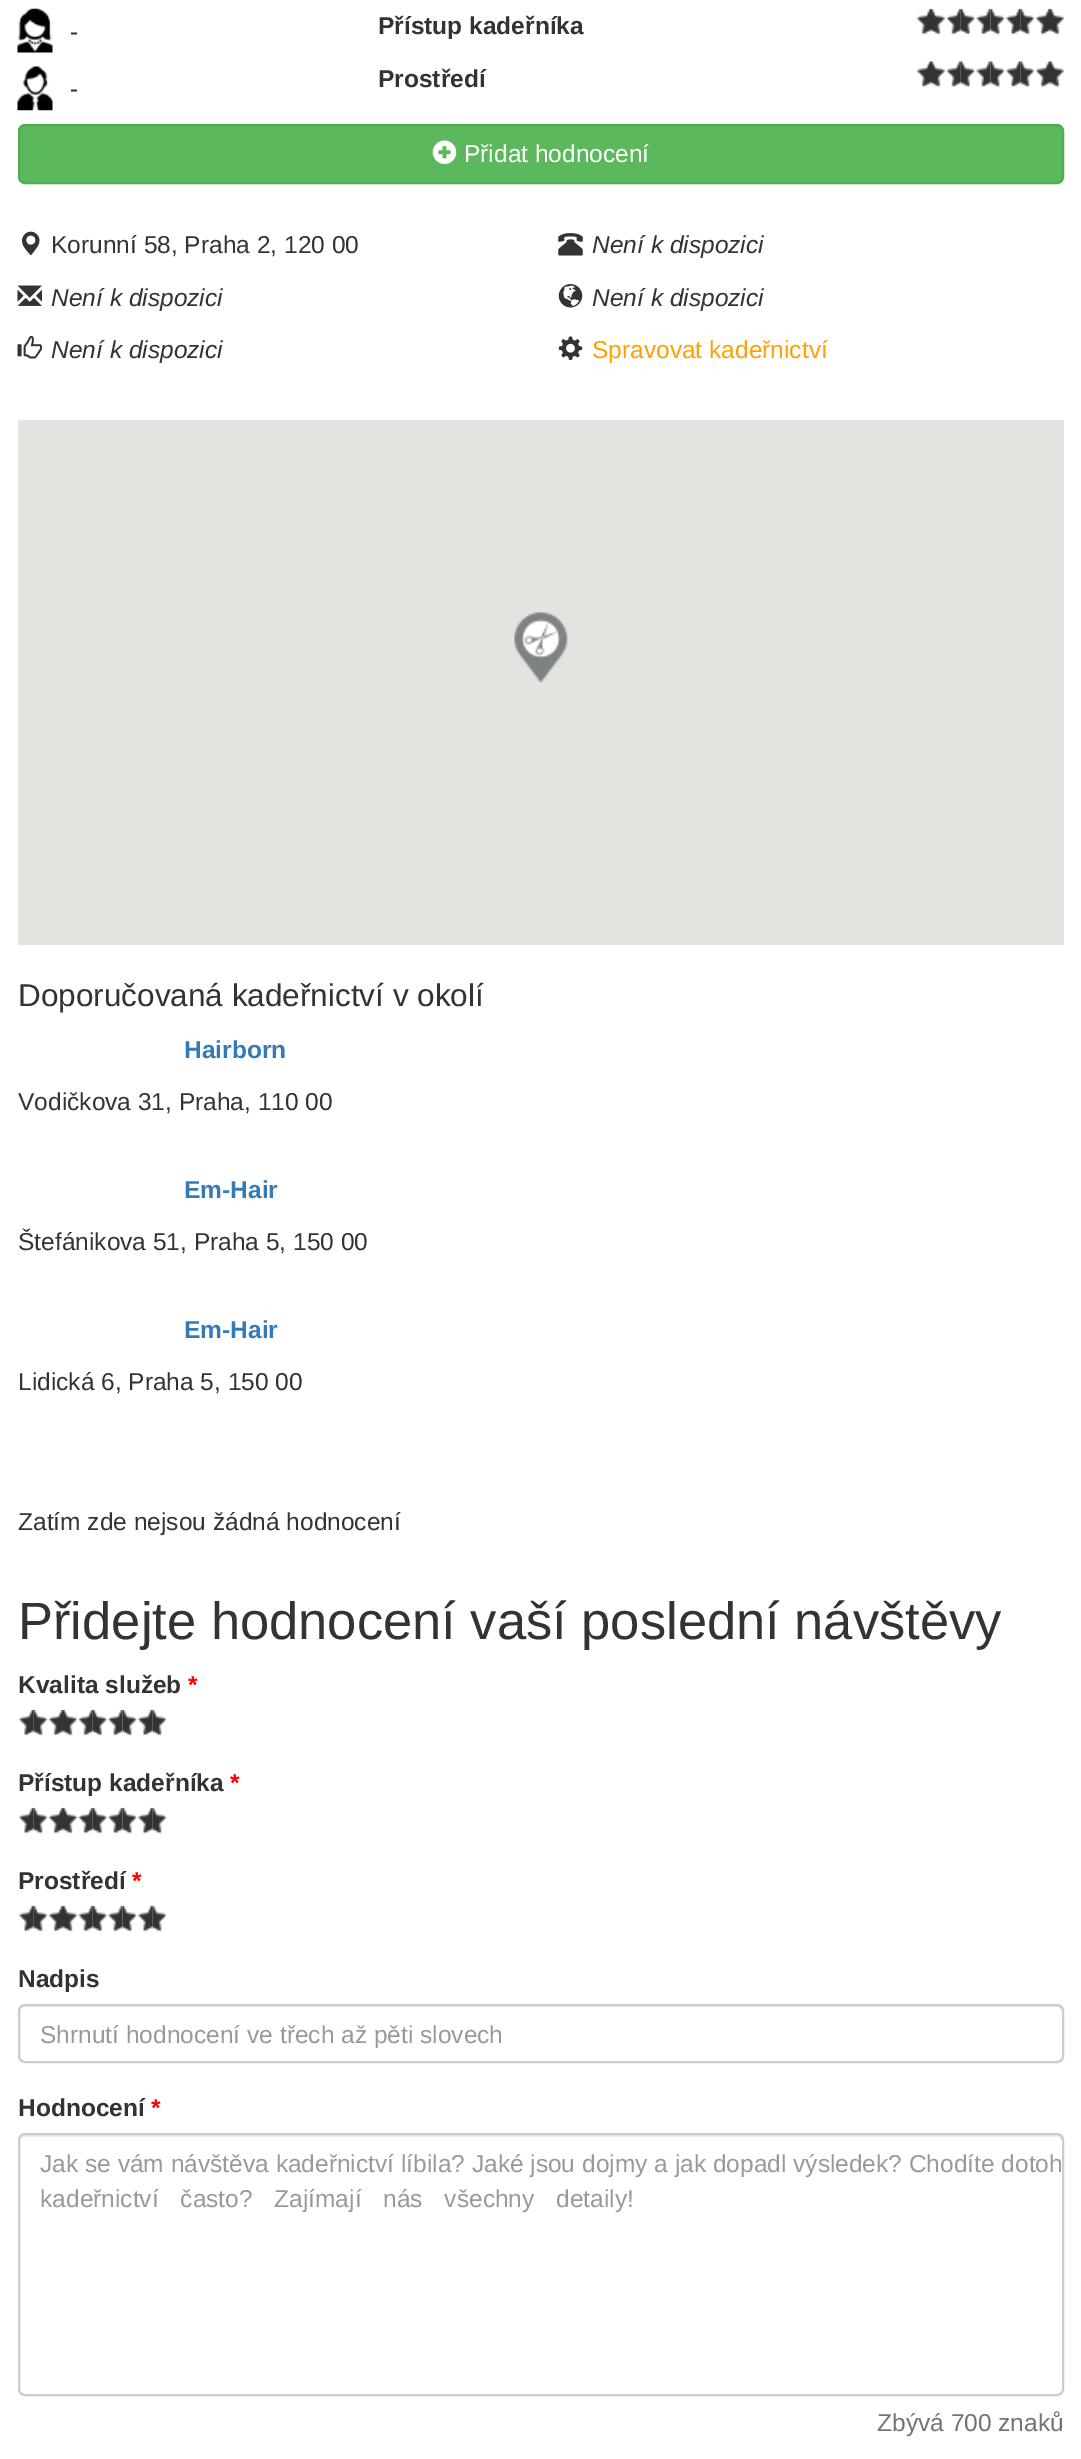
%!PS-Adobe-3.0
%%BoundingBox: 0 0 1081 2459
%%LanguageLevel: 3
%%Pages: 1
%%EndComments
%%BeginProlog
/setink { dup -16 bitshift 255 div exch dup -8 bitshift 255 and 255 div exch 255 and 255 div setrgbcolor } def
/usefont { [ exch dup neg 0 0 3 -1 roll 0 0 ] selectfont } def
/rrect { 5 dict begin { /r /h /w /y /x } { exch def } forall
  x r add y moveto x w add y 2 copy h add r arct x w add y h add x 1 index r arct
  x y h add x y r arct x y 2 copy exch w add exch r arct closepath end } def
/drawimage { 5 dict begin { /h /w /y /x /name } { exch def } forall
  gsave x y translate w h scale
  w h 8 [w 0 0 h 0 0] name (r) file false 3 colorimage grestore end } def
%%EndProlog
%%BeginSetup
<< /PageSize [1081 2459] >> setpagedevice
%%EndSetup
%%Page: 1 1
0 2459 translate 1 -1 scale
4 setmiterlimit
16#FFFFFF setink
0 0 1081 2459 rectfill
(img1.raw) 17 8 36 45 drawimage
/LiberationSans-Regular 24.5 usefont
16#333333 setink
70 40 moveto (-) show
(img2.raw) 17 66 36 45 drawimage
70 97 moveto (-) show
/LiberationSans-Bold 24.5 usefont
378 34 moveto (Přístup kadeřníka) show
(img3.raw) 917 8 14 28 drawimage
(img4.raw) 931 8 14 28 drawimage
(img5.raw) 946 8 15 27 drawimage
(img6.raw) 960 8 15 28 drawimage
(img7.raw) 976 8 15 28 drawimage
(img8.raw) 990 8 15 28 drawimage
(img9.raw) 1006 8 15 28 drawimage
(img10.raw) 1020 8 15 28 drawimage
(img11.raw) 1036 8 14 28 drawimage
(img12.raw) 1050 8 14 28 drawimage
378 87 moveto (Prostředí) show
(img13.raw) 917 61 14 27 drawimage
(img14.raw) 931 61 14 27 drawimage
(img15.raw) 946 61 15 27 drawimage
(img16.raw) 960 61 15 27 drawimage
(img17.raw) 976 61 15 27 drawimage
(img18.raw) 990 61 15 27 drawimage
(img19.raw) 1006 61 15 27 drawimage
(img20.raw) 1020 61 15 27 drawimage
(img21.raw) 1036 61 14 27 drawimage
(img22.raw) 1050 61 14 27 drawimage
16#5CB85C setink
19 125 1044 58 6 rrect gsave fill grestore
16#4CAE4C setink
2 setlinewidth
stroke
(img23.raw) 432 140 25 24 drawimage
/LiberationSans-Regular 24.5 usefont
16#FFFFFF setink
464 162 moveto (Přidat hodnocení) show
(img24.raw) 22 231 18 25 drawimage
16#333333 setink
51 253 moveto (Korunní 58, Praha 2, 120 00) show
(img25.raw) 558 233 25 23 drawimage
/LiberationSans-Italic 24.5 usefont
592 253 moveto (Není k dispozici) show
(img26.raw) 17 285 25 21 drawimage
51 306 moveto (Není k dispozici) show
(img27.raw) 558 284 25 24 drawimage
592 306 moveto (Není k dispozici) show
(img28.raw) 17 336 25 23 drawimage
51 358 moveto (Není k dispozici) show
(img29.raw) 558 336 25 24 drawimage
/LiberationSans-Regular 24.5 usefont
16#FEA002 setink
592 358 moveto (Spravovat kadeřnictví) show
16#E5E3DF setink
18 420 1046 525 rectfill
(img30.raw) 514 612 54 71 drawimage
/LiberationSans-Regular 31.5 usefont
16#333333 setink
18 1006 moveto (Doporučovaná kadeřnictví v okolí) show
/LiberationSans-Bold 24.5 usefont
16#337AB7 setink
184 1058 moveto (Hairborn) show
/LiberationSans-Regular 24.5 usefont
16#333333 setink
18 1110 moveto (Vodičkova 31, Praha, 110 00) show
/LiberationSans-Bold 24.5 usefont
16#337AB7 setink
184 1198 moveto (Em-Hair) show
/LiberationSans-Regular 24.5 usefont
16#333333 setink
18 1250 moveto (Štefánikova 51, Praha 5, 150 00) show
/LiberationSans-Bold 24.5 usefont
16#337AB7 setink
184 1338 moveto (Em-Hair) show
/LiberationSans-Regular 24.5 usefont
16#333333 setink
18 1390 moveto (Lidická 6, Praha 5, 150 00) show
18 1530 moveto (Zatím zde nejsou žádná hodnocení) show
/LiberationSans-Regular 52.5 usefont
18 1639 moveto (Přidejte hodnocení vaší poslední návštěvy) show
/LiberationSans-Bold 24.5 usefont
18 1693 moveto (Kvalita služeb) show
16#FF0000 setink
188 1693 moveto (*) show
(img31.raw) 19 1709 15 28 drawimage
(img10.raw) 33 1709 15 28 drawimage
(img3.raw) 49 1709 14 28 drawimage
(img12.raw) 63 1709 14 28 drawimage
(img32.raw) 78 1709 15 27 drawimage
(img33.raw) 92 1709 15 28 drawimage
(img7.raw) 108 1709 15 28 drawimage
(img8.raw) 122 1709 15 28 drawimage
(img34.raw) 138 1709 15 28 drawimage
(img10.raw) 152 1709 15 28 drawimage
16#333333 setink
18 1791 moveto (Přístup kadeřníka) show
16#FF0000 setink
230 1791 moveto (*) show
(img31.raw) 19 1807 15 28 drawimage
(img10.raw) 33 1807 15 28 drawimage
(img3.raw) 49 1807 14 28 drawimage
(img12.raw) 63 1807 14 28 drawimage
(img32.raw) 78 1807 15 27 drawimage
(img33.raw) 92 1807 15 28 drawimage
(img7.raw) 108 1807 15 28 drawimage
(img8.raw) 122 1807 15 28 drawimage
(img34.raw) 138 1807 15 28 drawimage
(img10.raw) 152 1807 15 28 drawimage
16#333333 setink
18 1889 moveto (Prostředí) show
16#FF0000 setink
132 1889 moveto (*) show
(img31.raw) 19 1905 15 28 drawimage
(img10.raw) 33 1905 15 28 drawimage
(img3.raw) 49 1905 14 28 drawimage
(img12.raw) 63 1905 14 28 drawimage
(img32.raw) 78 1905 15 27 drawimage
(img33.raw) 92 1905 15 28 drawimage
(img7.raw) 108 1905 15 28 drawimage
(img8.raw) 122 1905 15 28 drawimage
(img34.raw) 138 1905 15 28 drawimage
(img10.raw) 152 1905 15 28 drawimage
16#333333 setink
18 1987 moveto (Nadpis) show
16#ECECEC setink
24 2007 moveto 1057 2007 lineto 1060 2007 1062 2010 1062 2012 curveto 1062 2009 1060 2006 1057 2006 curveto 24 2006 lineto 21 2006 19 2009 19 2012 curveto 19 2010 22 2007 24 2007 curveto closepath fill
16#CCCCCC setink
19 2005 1044 57 6 rrect stroke
/LiberationSans-Regular 24.5 usefont
16#999999 setink
40 2043 moveto (Shrnutí hodnocení ve třech až pěti slovech) show
/LiberationSans-Bold 24.5 usefont
16#333333 setink
18 2116 moveto (Hodnocení) show
16#FF0000 setink
151 2116 moveto (*) show
16#ECECEC setink
24 2137 moveto 1057 2137 lineto 1060 2137 1062 2139 1062 2142 curveto 1062 2140 lineto 1062 2137 1060 2135 1057 2135 curveto 24 2135 lineto 21 2135 19 2137 19 2140 curveto 19 2142 lineto 19 2139 22 2137 24 2137 curveto closepath fill
16#CCCCCC setink
19 2134 1044 261 6 rrect stroke
/LiberationSans-Regular 24.5 usefont
16#999999 setink
40 2172 moveto (Jak se vám návštěva kadeřnictví líbila? Jaké jsou dojmy a jak dopadl výsledek? Chodíte dotoh) show
40 2207 moveto 15 0 32 (kadeřnictví často? Zajímají nás všechny detaily!) widthshow
16#737373 setink
877 2431 moveto (Zbývá 700 znaků) show
showpage
%%EOF
